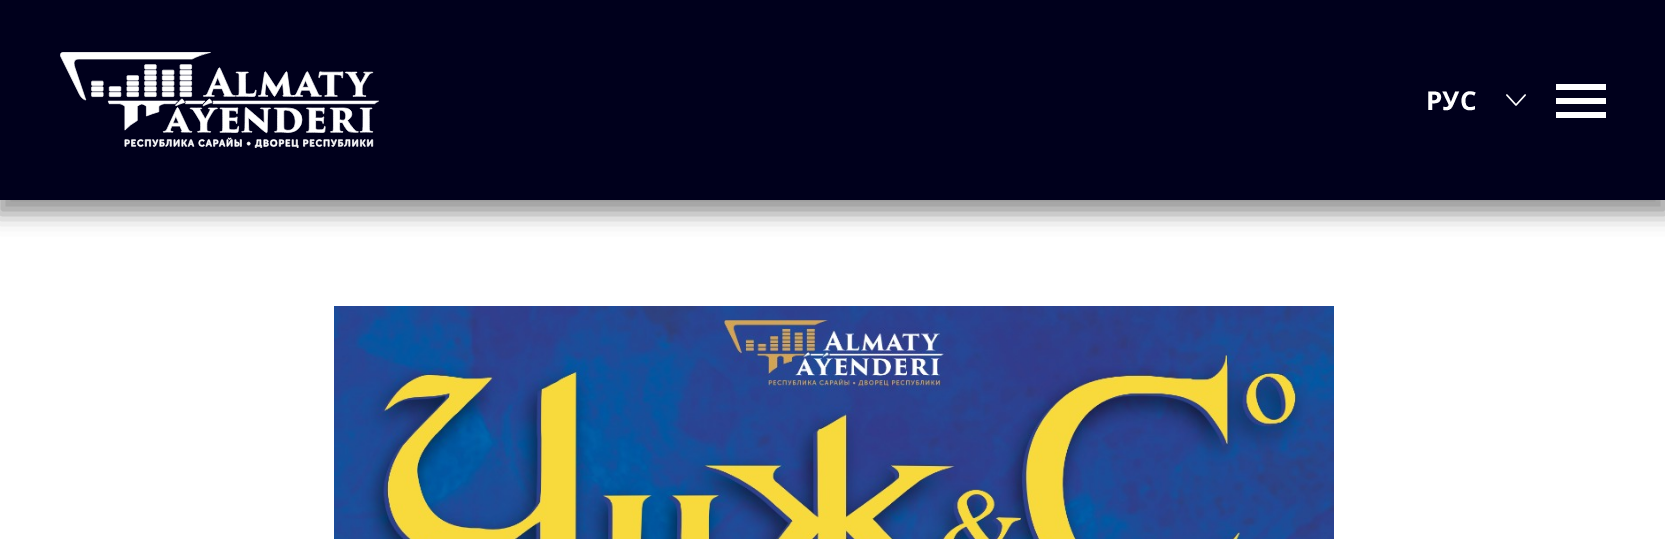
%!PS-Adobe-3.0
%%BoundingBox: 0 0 1665 539
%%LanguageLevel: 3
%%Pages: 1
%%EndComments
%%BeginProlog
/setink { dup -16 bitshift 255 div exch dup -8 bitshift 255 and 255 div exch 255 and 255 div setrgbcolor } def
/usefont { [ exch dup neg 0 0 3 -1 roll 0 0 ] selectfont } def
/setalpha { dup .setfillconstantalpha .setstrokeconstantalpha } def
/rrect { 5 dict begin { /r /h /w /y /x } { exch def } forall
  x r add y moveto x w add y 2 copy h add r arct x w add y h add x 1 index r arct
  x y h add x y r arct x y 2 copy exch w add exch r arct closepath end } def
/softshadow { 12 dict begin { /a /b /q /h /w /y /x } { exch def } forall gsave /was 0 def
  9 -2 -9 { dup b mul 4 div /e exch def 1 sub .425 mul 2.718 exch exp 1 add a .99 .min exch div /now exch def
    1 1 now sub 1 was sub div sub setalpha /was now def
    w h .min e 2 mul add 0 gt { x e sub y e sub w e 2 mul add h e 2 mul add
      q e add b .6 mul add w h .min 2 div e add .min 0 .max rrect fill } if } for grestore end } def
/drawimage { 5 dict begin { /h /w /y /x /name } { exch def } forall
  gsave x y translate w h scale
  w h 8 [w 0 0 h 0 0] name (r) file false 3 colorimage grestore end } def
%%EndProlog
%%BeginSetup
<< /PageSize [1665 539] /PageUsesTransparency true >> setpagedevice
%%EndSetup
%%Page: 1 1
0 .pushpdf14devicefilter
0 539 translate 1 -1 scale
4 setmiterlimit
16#FFFFFF setink
0 0 1665 539 rectfill
16#000000 setink
-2 10 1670 204 0 10 0.41 softshadow
16#00001C setink
0 0 1665 200 rectfill
(img1.raw) 60 52 319 96 drawimage
/OpenSans-Bold 26 usefont
16#FFFFFF setink
1426 110 moveto (РУС) show
(img2.raw) 1506 94 20 12 drawimage
[
    [1556 84 50 6 16#FFFFFF]
    [1556 98 50 6 16#FFFFFF]
    [1556 112 50 6 16#FFFFFF]
] { aload pop setink rectfill } forall
(img3.raw) 334 306 1000 233 drawimage
.poppdf14devicefilter showpage
%%EOF
